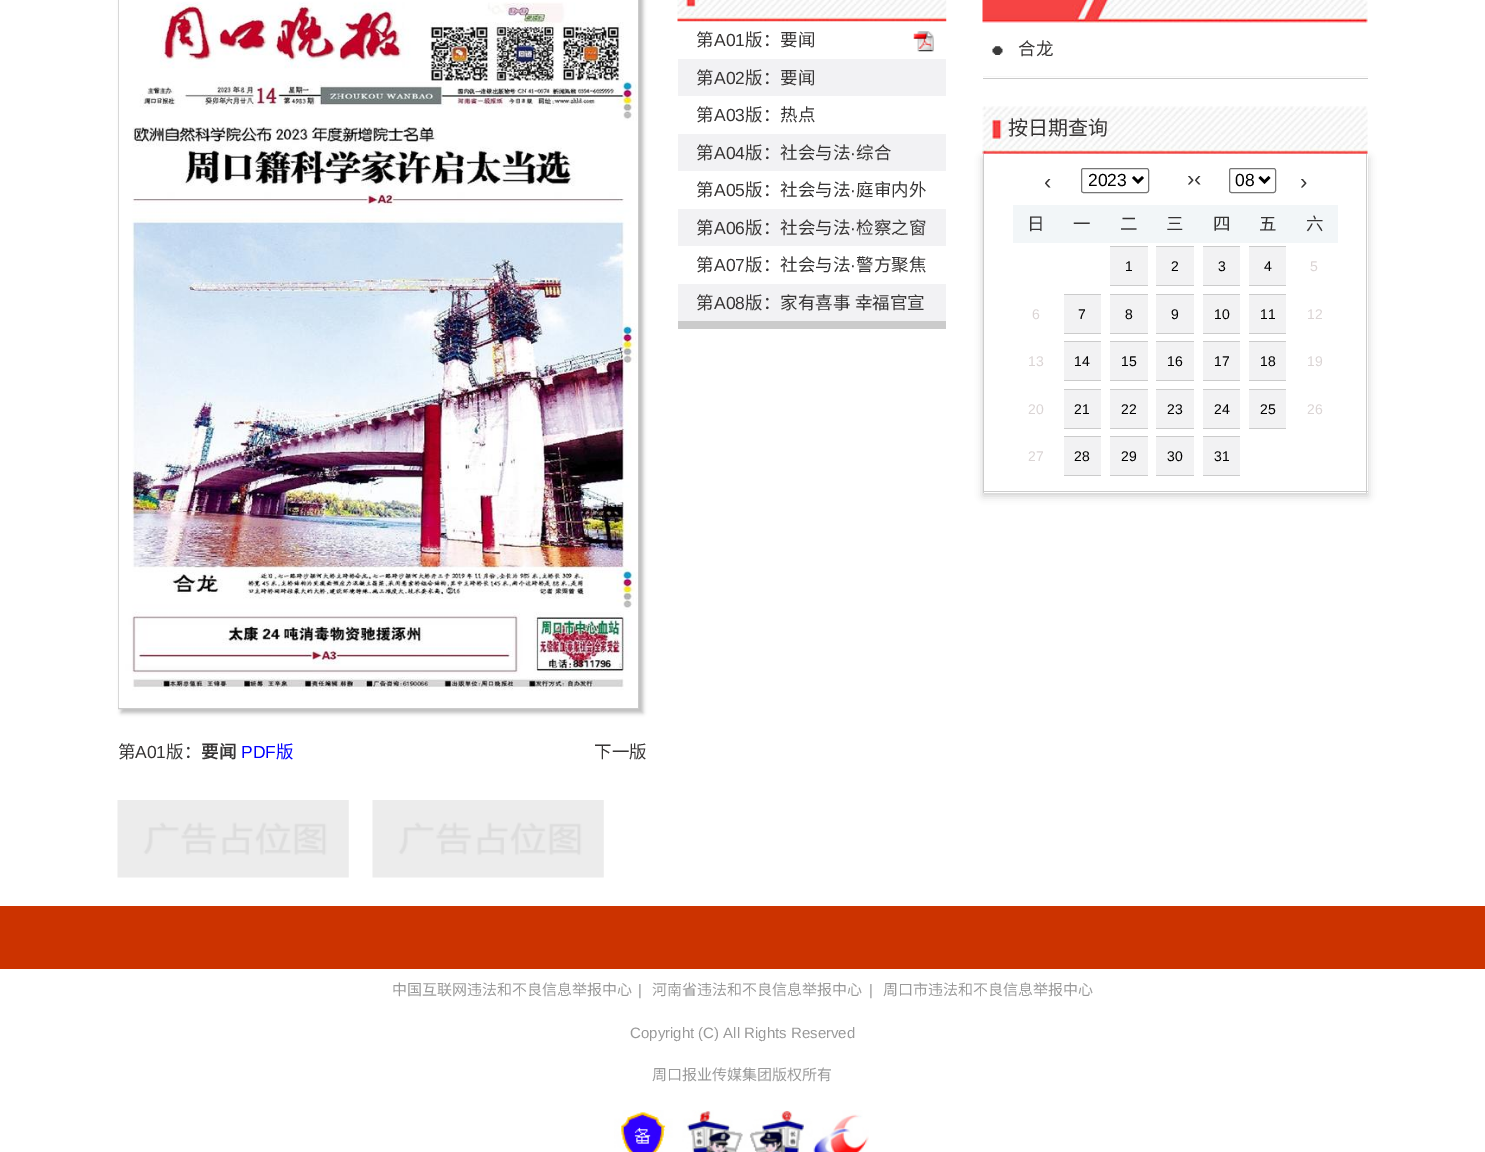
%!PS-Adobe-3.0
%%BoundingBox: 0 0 1485 1152
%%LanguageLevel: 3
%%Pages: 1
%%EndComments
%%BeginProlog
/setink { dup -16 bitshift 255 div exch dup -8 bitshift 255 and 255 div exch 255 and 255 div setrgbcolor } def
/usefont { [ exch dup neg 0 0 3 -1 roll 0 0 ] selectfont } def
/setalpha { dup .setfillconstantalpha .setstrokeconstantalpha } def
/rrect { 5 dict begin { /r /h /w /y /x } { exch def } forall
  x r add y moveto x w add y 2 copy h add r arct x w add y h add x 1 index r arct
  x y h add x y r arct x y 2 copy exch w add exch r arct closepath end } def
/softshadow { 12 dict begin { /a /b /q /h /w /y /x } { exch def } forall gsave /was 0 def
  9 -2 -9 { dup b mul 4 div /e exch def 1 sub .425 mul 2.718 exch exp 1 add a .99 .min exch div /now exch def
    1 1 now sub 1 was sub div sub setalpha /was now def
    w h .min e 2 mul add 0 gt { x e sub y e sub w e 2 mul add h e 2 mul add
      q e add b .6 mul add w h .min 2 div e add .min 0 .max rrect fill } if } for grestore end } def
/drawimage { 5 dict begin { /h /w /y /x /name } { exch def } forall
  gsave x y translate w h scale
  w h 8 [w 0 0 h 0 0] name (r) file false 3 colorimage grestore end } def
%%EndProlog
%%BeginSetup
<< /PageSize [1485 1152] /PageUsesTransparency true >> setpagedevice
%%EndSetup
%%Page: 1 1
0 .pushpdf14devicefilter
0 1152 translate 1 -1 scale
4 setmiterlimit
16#FFFFFF setink
0 0 1485 1152 rectfill
16#CBCBCB setink
678 321 268 8 rectfill
(img1.raw) 677 0 270 22 drawimage
/NotoSansCJKSC-Regular 17.5 usefont
16#373535 setink
696 46 moveto (第) show
/LiberationSans-Regular 17.5 usefont
714 46 moveto (A01) show
/NotoSansCJKSC-Regular 17.5 usefont
745 46 moveto (版：要闻) show
(img2.raw) 913 31 21 21 drawimage
16#F2F2F4 setink
678 59 268 37 rectfill
16#373535 setink
696 84 moveto (第) show
/LiberationSans-Regular 17.5 usefont
714 84 moveto (A02) show
/NotoSansCJKSC-Regular 17.5 usefont
745 84 moveto (版：要闻) show
696 121 moveto (第) show
/LiberationSans-Regular 17.5 usefont
714 121 moveto (A03) show
/NotoSansCJKSC-Regular 17.5 usefont
745 121 moveto (版：热点) show
16#F2F2F4 setink
678 134 268 37 rectfill
16#373535 setink
696 159 moveto (第) show
/LiberationSans-Regular 17.5 usefont
714 159 moveto (A04) show
/NotoSansCJKSC-Regular 17.5 usefont
745 159 moveto (版：社会与法) show
/LiberationSans-Regular 17.5 usefont
850 159 moveto (·) show
/NotoSansCJKSC-Regular 17.5 usefont
856 159 moveto (综合) show
696 196 moveto (第) show
/LiberationSans-Regular 17.5 usefont
714 196 moveto (A05) show
/NotoSansCJKSC-Regular 17.5 usefont
745 196 moveto (版：社会与法) show
/LiberationSans-Regular 17.5 usefont
850 196 moveto (·) show
/NotoSansCJKSC-Regular 17.5 usefont
856 196 moveto (庭审内外) show
16#F2F2F4 setink
678 209 268 37 rectfill
16#373535 setink
696 234 moveto (第) show
/LiberationSans-Regular 17.5 usefont
714 234 moveto (A06) show
/NotoSansCJKSC-Regular 17.5 usefont
745 234 moveto (版：社会与法) show
/LiberationSans-Regular 17.5 usefont
850 234 moveto (·) show
/NotoSansCJKSC-Regular 17.5 usefont
856 234 moveto (检察之窗) show
696 271 moveto (第) show
/LiberationSans-Regular 17.5 usefont
714 271 moveto (A07) show
/NotoSansCJKSC-Regular 17.5 usefont
745 271 moveto (版：社会与法) show
/LiberationSans-Regular 17.5 usefont
850 271 moveto (·) show
/NotoSansCJKSC-Regular 17.5 usefont
856 271 moveto (警方聚焦) show
16#F2F2F4 setink
678 284 268 37 rectfill
16#373535 setink
696 309 moveto (第) show
/LiberationSans-Regular 17.5 usefont
714 309 moveto (A08) show
/NotoSansCJKSC-Regular 17.5 usefont
745 309 moveto 1 0 32 (版：家有喜事 幸福官宣) widthshow
(img3.raw) 982 0 386 23 drawimage
16#CBCBCB setink
983 78 385 1 rectfill
16#F8F8F8 setink
983 76 385 1 rectfill
(img4.raw) 992 46 11 9 drawimage
16#373535 setink
1018 55 moveto (合龙) show
(img5.raw) 982 106 386 48 drawimage
/NotoSansCJKSC-Regular 20 usefont
1008 135 moveto (按日期查询) show
gsave
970 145 moveto 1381 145 lineto 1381 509 lineto 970 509 lineto closepath 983 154 moveto 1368 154 lineto 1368 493 lineto 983 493 lineto closepath eoclip newpath
16#CCCCCC setink
983 158 385 338 0 4 1 softshadow
grestore
[
    [1366 154 1 339 16#CCCCCC]
    [983 491 385 1 16#CCCCCC]
    [983 154 1 339 16#CCCCCC]
] { aload pop setink rectfill } forall
/LiberationSans-Regular 22 usefont
16#373535 setink
1044 189 moveto (‹) show
16#767676 setink
1081.5 168.5 67 24 2 rrect stroke
16#000000 setink
2.5 setlinewidth
1133 177 moveto 1138 182 lineto 1143 177 lineto stroke
/LiberationSans-Regular 17.5 usefont
1088 186 moveto (2023) show
/LiberationSans-Regular 22 usefont
16#373535 setink
1187 186 moveto (›‹) show
16#767676 setink
1 setlinewidth
1229.5 168.5 46 24 2 rrect stroke
16#000000 setink
2.5 setlinewidth
1259.5 177 moveto 1264.5 182 lineto 1269.5 177 lineto stroke
/LiberationSans-Regular 17.5 usefont
1235 186 moveto (08) show
/LiberationSans-Regular 22 usefont
16#373535 setink
1300 189 moveto (›) show
16#F2F6F8 setink
1013 205 325 38 rectfill
/NotoSansCJKSC-Regular 17.5 usefont
16#373535 setink
[
    [(日) 1027 230]
    [(一) 1073 230]
    [(二) 1120 230]
    [(三) 1166 230]
    [(四) 1213 230]
    [(五) 1259 230]
    [(六) 1306 230]
] { aload pop moveto show } forall
[
    [1110 247 38 38 16#F2F2F3]
    [1110 246 38 1 16#CBCBCB]
    [1110 285 38 1 16#CBCBCB]
] { aload pop setink rectfill } forall
/LiberationSans-Regular 14 usefont
16#000000 setink
1125 271 moveto (1) show
[
    [1156 247 38 38 16#F2F2F3]
    [1156 246 38 1 16#CBCBCB]
    [1156 285 38 1 16#CBCBCB]
] { aload pop setink rectfill } forall
16#000000 setink
1171 271 moveto (2) show
[
    [1203 247 37 38 16#F2F2F3]
    [1203 246 37 1 16#CBCBCB]
    [1203 285 37 1 16#CBCBCB]
] { aload pop setink rectfill } forall
16#000000 setink
1218 271 moveto (3) show
[
    [1249 247 37 38 16#F2F2F3]
    [1249 246 37 1 16#CBCBCB]
    [1249 285 37 1 16#CBCBCB]
] { aload pop setink rectfill } forall
16#000000 setink
1264 271 moveto (4) show
16#DAD4D4 setink
1310 271 moveto (5) show
1032 319 moveto (6) show
[
    [1064 295 37 38 16#F2F2F3]
    [1064 294 37 1 16#CBCBCB]
    [1064 333 37 1 16#CBCBCB]
] { aload pop setink rectfill } forall
16#000000 setink
1078 319 moveto (7) show
[
    [1110 295 38 38 16#F2F2F3]
    [1110 294 38 1 16#CBCBCB]
    [1110 333 38 1 16#CBCBCB]
] { aload pop setink rectfill } forall
16#000000 setink
1125 319 moveto (8) show
[
    [1156 295 38 38 16#F2F2F3]
    [1156 294 38 1 16#CBCBCB]
    [1156 333 38 1 16#CBCBCB]
] { aload pop setink rectfill } forall
16#000000 setink
1171 319 moveto (9) show
[
    [1203 295 37 38 16#F2F2F3]
    [1203 294 37 1 16#CBCBCB]
    [1203 333 37 1 16#CBCBCB]
] { aload pop setink rectfill } forall
16#000000 setink
1214 319 moveto (10) show
[
    [1249 295 37 38 16#F2F2F3]
    [1249 294 37 1 16#CBCBCB]
    [1249 333 37 1 16#CBCBCB]
] { aload pop setink rectfill } forall
16#000000 setink
1260 319 moveto (11) show
16#DAD4D4 setink
1307 319 moveto (12) show
1028 366 moveto (13) show
[
    [1064 342 37 38 16#F2F2F3]
    [1064 341 37 1 16#CBCBCB]
    [1064 380 37 1 16#CBCBCB]
] { aload pop setink rectfill } forall
16#000000 setink
1074 366 moveto (14) show
[
    [1110 342 38 38 16#F2F2F3]
    [1110 341 38 1 16#CBCBCB]
    [1110 380 38 1 16#CBCBCB]
] { aload pop setink rectfill } forall
16#000000 setink
1121 366 moveto (15) show
[
    [1156 342 38 38 16#F2F2F3]
    [1156 341 38 1 16#CBCBCB]
    [1156 380 38 1 16#CBCBCB]
] { aload pop setink rectfill } forall
16#000000 setink
1167 366 moveto (16) show
[
    [1203 342 37 38 16#F2F2F3]
    [1203 341 37 1 16#CBCBCB]
    [1203 380 37 1 16#CBCBCB]
] { aload pop setink rectfill } forall
16#000000 setink
1214 366 moveto (17) show
[
    [1249 342 37 38 16#F2F2F3]
    [1249 341 37 1 16#CBCBCB]
    [1249 380 37 1 16#CBCBCB]
] { aload pop setink rectfill } forall
16#000000 setink
1260 366 moveto (18) show
16#DAD4D4 setink
1307 366 moveto (19) show
1028 414 moveto (20) show
[
    [1064 390 37 38 16#F2F2F3]
    [1064 389 37 1 16#CBCBCB]
    [1064 428 37 1 16#CBCBCB]
] { aload pop setink rectfill } forall
16#000000 setink
1074 414 moveto (21) show
[
    [1110 390 38 38 16#F2F2F3]
    [1110 389 38 1 16#CBCBCB]
    [1110 428 38 1 16#CBCBCB]
] { aload pop setink rectfill } forall
16#000000 setink
1121 414 moveto (22) show
[
    [1156 390 38 38 16#F2F2F3]
    [1156 389 38 1 16#CBCBCB]
    [1156 428 38 1 16#CBCBCB]
] { aload pop setink rectfill } forall
16#000000 setink
1167 414 moveto (23) show
[
    [1203 390 37 38 16#F2F2F3]
    [1203 389 37 1 16#CBCBCB]
    [1203 428 37 1 16#CBCBCB]
] { aload pop setink rectfill } forall
16#000000 setink
1214 414 moveto (24) show
[
    [1249 390 37 38 16#F2F2F3]
    [1249 389 37 1 16#CBCBCB]
    [1249 428 37 1 16#CBCBCB]
] { aload pop setink rectfill } forall
16#000000 setink
1260 414 moveto (25) show
16#DAD4D4 setink
1307 414 moveto (26) show
1028 461 moveto (27) show
[
    [1064 437 37 38 16#F2F2F3]
    [1064 436 37 1 16#CBCBCB]
    [1064 475 37 1 16#CBCBCB]
] { aload pop setink rectfill } forall
16#000000 setink
1074 461 moveto (28) show
[
    [1110 437 38 38 16#F2F2F3]
    [1110 436 38 1 16#CBCBCB]
    [1110 475 38 1 16#CBCBCB]
] { aload pop setink rectfill } forall
16#000000 setink
1121 461 moveto (29) show
[
    [1156 437 38 38 16#F2F2F3]
    [1156 436 38 1 16#CBCBCB]
    [1156 475 38 1 16#CBCBCB]
] { aload pop setink rectfill } forall
16#000000 setink
1167 461 moveto (30) show
[
    [1203 437 37 38 16#F2F2F3]
    [1203 436 37 1 16#CBCBCB]
    [1203 475 37 1 16#CBCBCB]
] { aload pop setink rectfill } forall
16#000000 setink
1214 461 moveto (31) show
16#BCBCBC setink
121 -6 522 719 0 2 1 softshadow
16#CBCBCB setink
1 setlinewidth
118.5 -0.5 520 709 rectstroke
(img6.raw) 118 0 520 708 drawimage
/NotoSansCJKSC-Regular 17.5 usefont
16#373535 setink
118 758 moveto (第) show
/LiberationSans-Regular 17.5 usefont
135 758 moveto (A01) show
/NotoSansCJKSC-Regular 17.5 usefont
166 758 moveto (版：) show
/NotoSansCJKSC-Bold 17.5 usefont
201 758 moveto (要闻) show
/LiberationSans-Regular 17.5 usefont
16#0000FF setink
241 758 moveto (PDF) show
/NotoSansCJKSC-Regular 17.5 usefont
276 758 moveto (版) show
16#373535 setink
594 758 moveto (下一版) show
(img7.raw) 117 800 232 78 drawimage
(img8.raw) 372 800 232 78 drawimage
16#CC3300 setink
0 906 1485 63 rectfill
/NotoSansCJKSC-Regular 15 usefont
16#999999 setink
392 995 moveto (中国互联网违法和不良信息举报中心) show
/LiberationSans-Regular 15 usefont
638 995 moveto (|) show
/NotoSansCJKSC-Regular 15 usefont
652 995 moveto (河南省违法和不良信息举报中心) show
/LiberationSans-Regular 15 usefont
869 995 moveto (|) show
/NotoSansCJKSC-Regular 15 usefont
883 995 moveto (周口市违法和不良信息举报中心) show
/LiberationSans-Regular 15 usefont
630 1038 moveto (Copyright \(C\) All Rights Reserved) show
/NotoSansCJKSC-Regular 15 usefont
652 1080 moveto (周口报业传媒集团版权所有) show
(img9.raw) 614 1110 255 42 drawimage
.poppdf14devicefilter showpage
%%EOF
